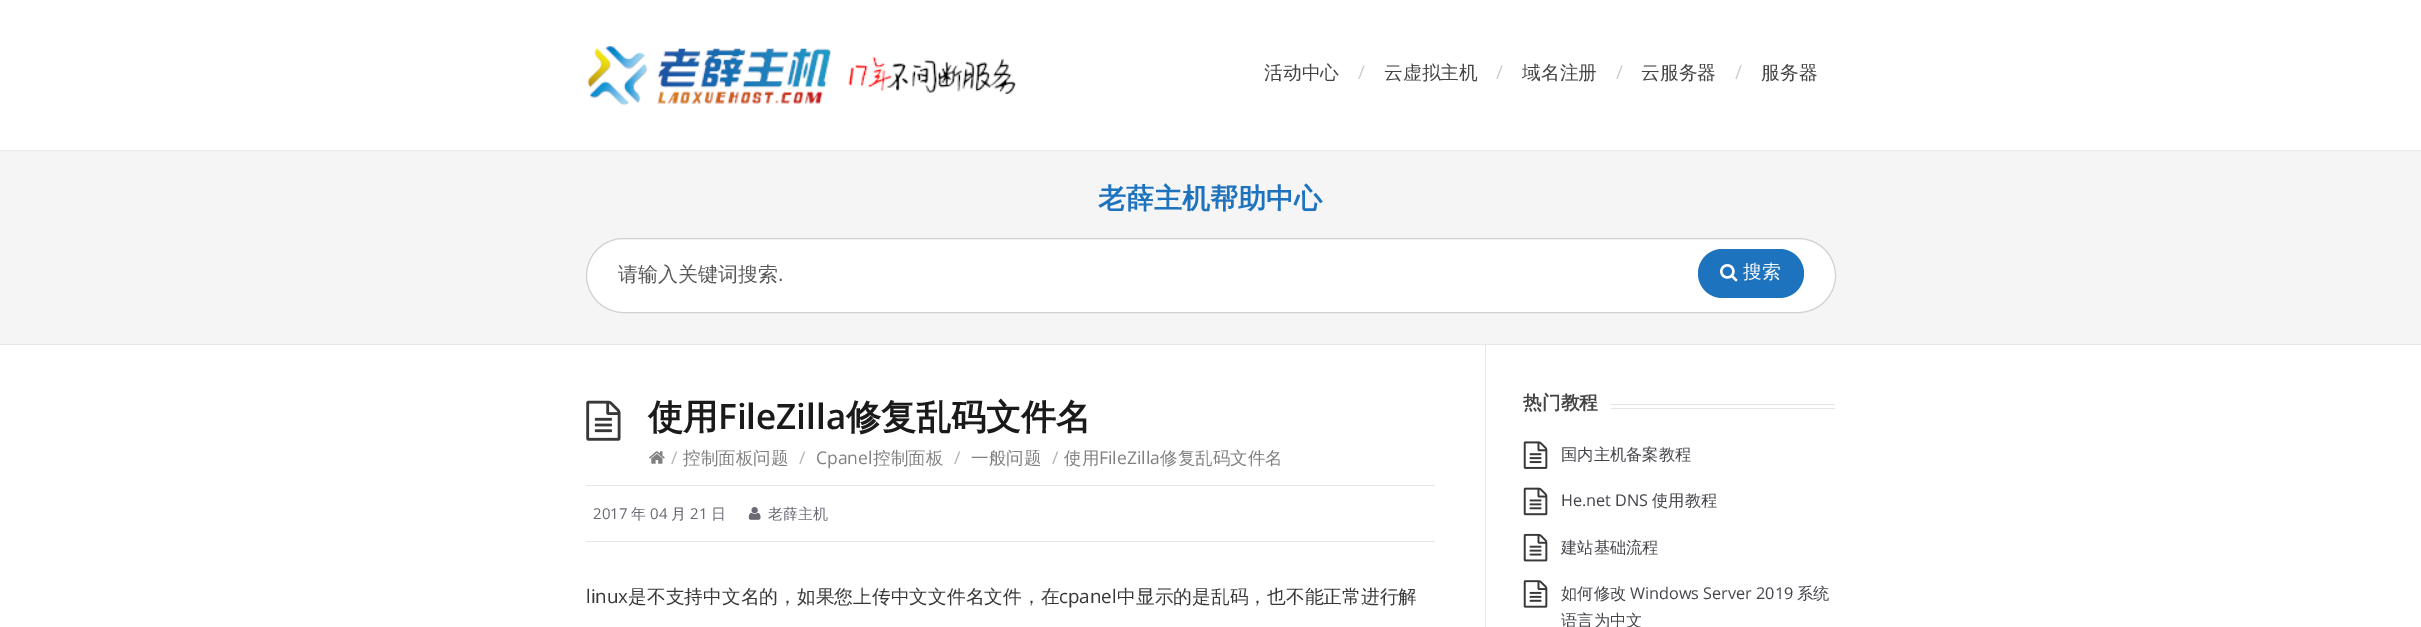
%!PS-Adobe-3.0
%%BoundingBox: 0 0 2421 627
%%LanguageLevel: 3
%%Pages: 1
%%EndComments
%%BeginProlog
/setink { dup -16 bitshift 255 div exch dup -8 bitshift 255 and 255 div exch 255 and 255 div setrgbcolor } def
/usefont { [ exch dup neg 0 0 3 -1 roll 0 0 ] selectfont } def
/rrect { 5 dict begin { /r /h /w /y /x } { exch def } forall
  x r add y moveto x w add y 2 copy h add r arct x w add y h add x 1 index r arct
  x y h add x y r arct x y 2 copy exch w add exch r arct closepath end } def
/drawimage { 5 dict begin { /h /w /y /x /name } { exch def } forall
  gsave x y translate w h scale
  w h 8 [w 0 0 h 0 0] name (r) file false 3 colorimage grestore end } def
%%EndProlog
%%BeginSetup
<< /PageSize [2421 627] >> setpagedevice
%%EndSetup
%%Page: 1 1
0 627 translate 1 -1 scale
4 setmiterlimit
16#FFFFFF setink
0 0 2421 627 rectfill
(img1.raw) 587 46 429 60 drawimage
/WenQuanYiZenHei-Medium 18.75 usefont
16#444444 setink
1264 79 moveto (活动中心) show
/OpenSans-Regular 18.75 usefont
16#CCCCCC setink
1358 79 moveto (/) show
/WenQuanYiZenHei-Medium 18.75 usefont
16#444444 setink
1384 79 moveto (云虚拟主机) show
/OpenSans-Regular 18.75 usefont
16#CCCCCC setink
1496 79 moveto (/) show
/WenQuanYiZenHei-Medium 18.75 usefont
16#444444 setink
1522 79 moveto (域名注册) show
/OpenSans-Regular 18.75 usefont
16#CCCCCC setink
1616 79 moveto (/) show
/WenQuanYiZenHei-Medium 18.75 usefont
16#444444 setink
1641 79 moveto (云服务器) show
/OpenSans-Regular 18.75 usefont
16#CCCCCC setink
1735 79 moveto (/) show
/WenQuanYiZenHei-Medium 18.75 usefont
16#444444 setink
1761 79 moveto (服务器) show
[
    [0 151 2421 193 16#F5F5F5]
    [0 150 2421 1 16#E8E8E8]
    [0 344 2421 1 16#E8E8E8]
] { aload pop setink rectfill } forall
/WenQuanYiZenHei-Bold 28 usefont
16#1E73BE setink
1098 208 moveto (老薛主机帮助中心) show
16#FFFFFF setink
586.5 238.5 1249 74 37 rrect gsave fill grestore
16#D1D1D1 setink
stroke
/WenQuanYiZenHei-Medium 20 usefont
16#595959 setink
618 281 moveto (请输入关键词搜索) show
/LiberationSans-Regular 20 usefont
778 281 moveto (.) show
16#1E73BE setink
1698 249 106 49 24.5 rrect fill
(img2.raw) 1720 264 18 18 drawimage
/WenQuanYiZenHei-Medium 18.75 usefont
16#FFFFFF setink
1743 278 moveto (搜索) show
16#E6E6E6 setink
1485 345 1 282 rectfill
586 485 849 1 rectfill
(img3.raw) 586 400 35 41 drawimage
/WenQuanYiZenHei-Bold 35 usefont
16#1A1A1A setink
648 429 moveto (使用) show
/OpenSans-SemiBold 35 usefont
718 429 moveto (FileZilla) show
/WenQuanYiZenHei-Bold 35 usefont
846 429 moveto (修复乱码文件名) show
(img4.raw) 649 451 16 13 drawimage
/OpenSans-Regular 17.5 usefont
16#B3B3B3 setink
671 464 moveto (/) show
/WenQuanYiZenHei-Medium 17.5 usefont
16#808080 setink
683 464 moveto (控制面板问题) show
/OpenSans-Regular 17.5 usefont
16#B3B3B3 setink
799 464 moveto (/) show
16#808080 setink
816 464 moveto (Cpanel) show
/WenQuanYiZenHei-Medium 17.5 usefont
873 464 moveto (控制面板) show
/OpenSans-Regular 17.5 usefont
16#B3B3B3 setink
954 464 moveto (/) show
/WenQuanYiZenHei-Medium 17.5 usefont
16#808080 setink
971 464 moveto (一般问题) show
/OpenSans-Regular 17.5 usefont
16#B3B3B3 setink
1052 464 moveto (/) show
/WenQuanYiZenHei-Medium 17.5 usefont
16#808080 setink
1064 464 moveto (使用) show
/OpenSans-Regular 17.5 usefont
1099 464 moveto (FileZilla) show
/WenQuanYiZenHei-Medium 17.5 usefont
1160 464 moveto (修复乱码文件名) show
16#E6E6E6 setink
586 541 849 1 rectfill
/OpenSans-Regular 15 usefont
16#6B6773 setink
593 519 moveto (2017) show
/WenQuanYiZenHei-Medium 15 usefont
631 519 moveto (年) show
/OpenSans-Regular 15 usefont
650 519 moveto (04) show
/WenQuanYiZenHei-Medium 15 usefont
671 519 moveto (月) show
/OpenSans-Regular 15 usefont
690 519 moveto (21) show
/WenQuanYiZenHei-Medium 15 usefont
711 519 moveto (日) show
(img5.raw) 748 507 13 13 drawimage
768 519 moveto (老薛主机) show
/OpenSans-Regular 18.75 usefont
16#383838 setink
586 603 moveto (linux) show
/WenQuanYiZenHei-Medium 18.75 usefont
628 603 moveto (是不支持中文名的，如果您上传中文文件名文件，在) show
/OpenSans-Regular 18.75 usefont
1059 603 moveto (cpanel) show
/WenQuanYiZenHei-Medium 18.75 usefont
1117 603 moveto (中显示的是乱码，也不能正常进行解) show
16#E5E5E5 setink
1611 404 224 1 rectfill
1611 408 224 1 rectfill
/WenQuanYiZenHei-Bold 18.75 usefont
16#444444 setink
1523 409 moveto (热门教程) show
(img6.raw) 1523 441 25 28 drawimage
/WenQuanYiZenHei-Medium 16.25 usefont
16#45454C setink
1561 460 moveto (国内主机备案教程) show
(img7.raw) 1523 487 25 29 drawimage
/OpenSans-Regular 16.25 usefont
1561 506 moveto (He.net DNS) show
/WenQuanYiZenHei-Medium 16.25 usefont
1652 506 moveto (使用教程) show
(img8.raw) 1523 533 25 29 drawimage
1561 553 moveto (建站基础流程) show
(img9.raw) 1523 580 25 28 drawimage
1561 599 moveto (如何修改) show
/OpenSans-Regular 16.25 usefont
1630 599 moveto (Windows Server 2019) show
/WenQuanYiZenHei-Medium 16.25 usefont
1797 599 moveto (系统) show
1561 626 moveto (语言为中文) show
showpage
%%EOF
